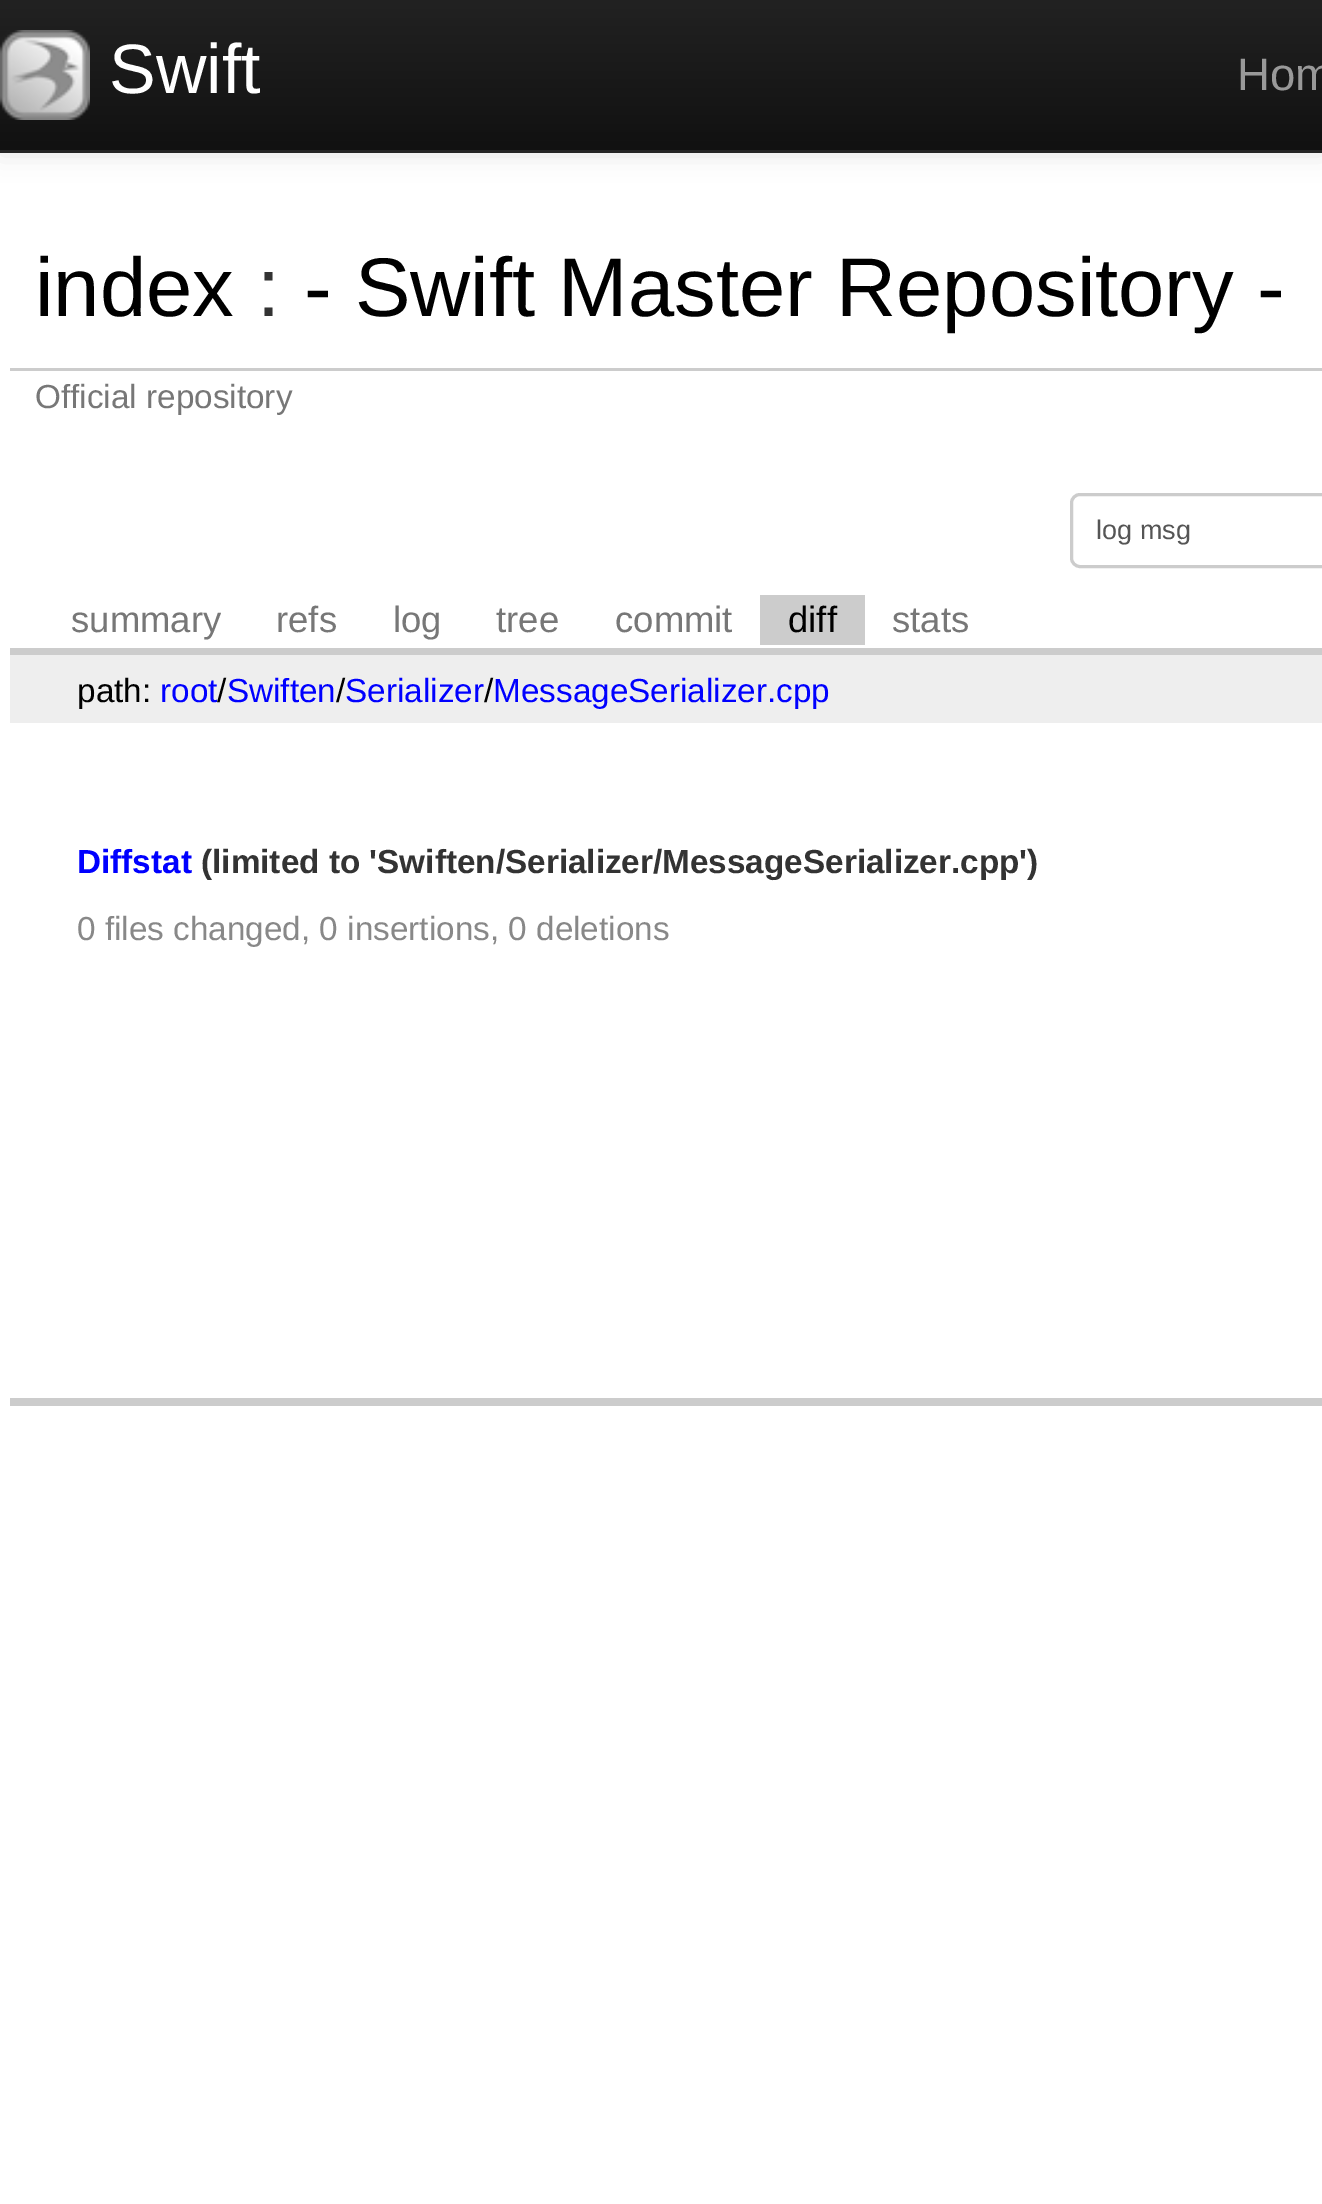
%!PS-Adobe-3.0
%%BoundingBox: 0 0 1322 2204
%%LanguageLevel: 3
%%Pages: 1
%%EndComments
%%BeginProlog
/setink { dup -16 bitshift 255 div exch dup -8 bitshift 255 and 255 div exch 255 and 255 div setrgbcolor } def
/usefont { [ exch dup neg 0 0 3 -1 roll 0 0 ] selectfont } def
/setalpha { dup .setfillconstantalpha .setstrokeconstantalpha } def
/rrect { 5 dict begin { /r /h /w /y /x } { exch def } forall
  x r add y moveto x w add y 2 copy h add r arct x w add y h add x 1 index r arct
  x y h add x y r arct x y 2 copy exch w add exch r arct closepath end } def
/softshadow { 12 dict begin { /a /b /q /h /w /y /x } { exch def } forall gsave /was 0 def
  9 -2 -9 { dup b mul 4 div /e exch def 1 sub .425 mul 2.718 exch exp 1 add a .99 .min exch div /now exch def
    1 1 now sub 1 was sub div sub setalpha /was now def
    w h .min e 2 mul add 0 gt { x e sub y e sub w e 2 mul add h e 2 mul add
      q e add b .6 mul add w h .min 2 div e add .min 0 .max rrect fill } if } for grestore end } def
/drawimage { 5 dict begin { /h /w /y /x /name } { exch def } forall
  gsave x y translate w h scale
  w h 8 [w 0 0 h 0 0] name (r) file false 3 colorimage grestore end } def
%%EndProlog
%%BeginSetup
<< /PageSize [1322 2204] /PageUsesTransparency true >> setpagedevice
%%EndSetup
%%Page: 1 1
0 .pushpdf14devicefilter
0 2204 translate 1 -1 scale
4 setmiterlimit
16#FFFFFF setink
0 0 1322 2204 rectfill
16#000000 setink
0 3 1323 152 0 12.5 0.1 softshadow
gsave 0 0 moveto 1322 0 lineto 1322 150 lineto 0 150 lineto closepath clip newpath
<< /ShadingType 2 /ColorSpace /DeviceRGB /Coords [661 0 661 150] /Extend [true true] /Function << /FunctionType 2 /Domain [0 1] /C0 [0.133 0.133 0.133] /C1 [0.067 0.067 0.067] /N 1 >> >> shfill grestore
16#252525 setink
0 150 1322 3 rectfill
(img1.raw) 0 30 90 90 drawimage
/LiberationSans-Regular 70 usefont
16#FFFFFF setink
109 93 moveto (Swift) show
/LiberationSans-Regular 45.5 usefont
16#999999 setink
1237 90 moveto (Hom) show
/LiberationSans-Regular 83.25 usefont
16#000000 setink
35 316 moveto (index) show
16#333333 setink
257 316 moveto (:) show
16#000000 setink
304 316 moveto (- Swift Master Repository -) show
16#CCCCCC setink
10 368 1312 3 rectfill
/LiberationSans-Regular 33.3 usefont
16#777777 setink
35 408 moveto (Official repository) show
16#CCCCCC setink
10 648 1312 7 rectfill
3 setlinewidth
1071.5 494.5 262 72 8.5 rrect stroke
/LiberationSans-Regular 27 usefont
16#555555 setink
1096 539 moveto (log msg) show
/LiberationSans-Regular 36.5 usefont
16#777777 setink
[
    [(summary) 71 632]
    [(refs) 276 632]
    [(log) 393 632]
    [(tree) 496 632]
    [(commit) 615 632]
] { aload pop moveto show } forall
16#CCCCCC setink
760 595 105 50 rectfill
16#000000 setink
788 632 moveto (diff) show
16#777777 setink
892 632 moveto (stats) show
16#EEEEEE setink
10 655 1312 68 rectfill
/LiberationSans-Regular 33.3 usefont
16#000000 setink
77 702 moveto (path:) show
16#0000FF setink
160 702 moveto (root Swiften Serializer MessageSerializer.cpp) show
16#000000 setink
[
    [(/) 217 702]
    [(/) 336 702]
    [(/) 484 702]
] { aload pop moveto show } forall
16#CCCCCC setink
10 1398 1312 8 rectfill
/LiberationSans-Bold 33.3 usefont
16#0000FF setink
77 873 moveto (Diffstat) show
16#333333 setink
201 873 moveto (\(limited to 'Swiften/Serializer/MessageSerializer.cpp'\)) show
/LiberationSans-Regular 33.3 usefont
16#888888 setink
77 940 moveto (0 files changed, 0 insertions, 0 deletions) show
.poppdf14devicefilter showpage
%%EOF
